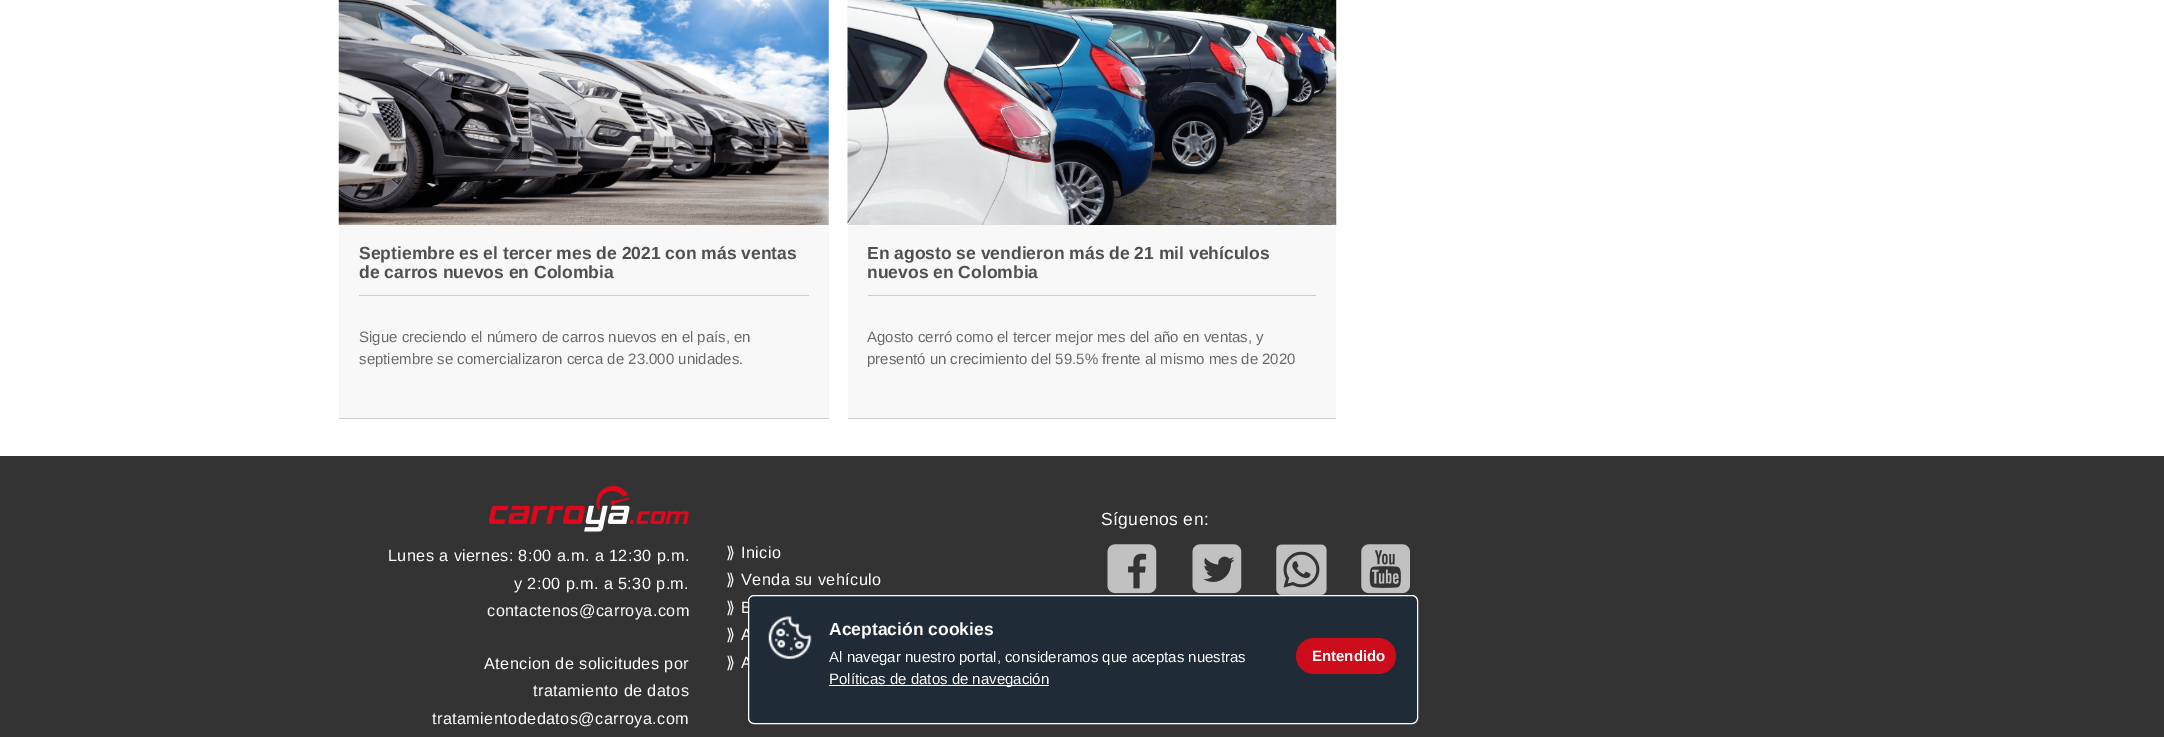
%!PS-Adobe-3.0
%%BoundingBox: 0 0 2164 737
%%LanguageLevel: 3
%%Pages: 1
%%EndComments
%%BeginProlog
/setink { dup -16 bitshift 255 div exch dup -8 bitshift 255 and 255 div exch 255 and 255 div setrgbcolor } def
/usefont { [ exch dup neg 0 0 3 -1 roll 0 0 ] selectfont } def
/rrect { 5 dict begin { /r /h /w /y /x } { exch def } forall
  x r add y moveto x w add y 2 copy h add r arct x w add y h add x 1 index r arct
  x y h add x y r arct x y 2 copy exch w add exch r arct closepath end } def
/drawimage { 5 dict begin { /h /w /y /x /name } { exch def } forall
  gsave x y translate w h scale
  w h 8 [w 0 0 h 0 0] name (r) file false 3 colorimage grestore end } def
%%EndProlog
%%BeginSetup
<< /PageSize [2164 737] >> setpagedevice
%%EndSetup
%%Page: 1 1
0 737 translate 1 -1 scale
4 setmiterlimit
16#FFFFFF setink
0 0 2164 737 rectfill
(img1.raw) 338 0 491 225 drawimage
[
    [339 225 490 193 16#F8F8F8]
    [339 418 490 1 16#D0D0D0]
    [359 295 450 1 16#CCCCCC]
] { aload pop setink rectfill } forall
/LiberationSans-Bold 17.5 usefont
16#505050 setink
359 259 moveto (Septiembre es el tercer mes de 2021 con más ventas) show
359 278 moveto (de carros nuevos en Colombia) show
/LiberationSans-Regular 15 usefont
16#6A6A6A setink
359 342 moveto (Sigue creciendo el número de carros nuevos en el país, en) show
359 364 moveto (septiembre se comercializaron cerca de 23.000 unidades.) show
(img2.raw) 847 0 490 225 drawimage
[
    [848 225 488 193 16#F8F8F8]
    [848 418 488 1 16#D0D0D0]
    [868 295 448 1 16#CCCCCC]
] { aload pop setink rectfill } forall
/LiberationSans-Bold 17.5 usefont
16#505050 setink
867 259 moveto (En agosto se vendieron más de 21 mil vehículos) show
867 278 moveto (nuevos en Colombia) show
/LiberationSans-Regular 15 usefont
16#6A6A6A setink
867 342 moveto (Agosto cerró como el tercer mejor mes del año en ventas, y) show
867 364 moveto (presentó un crecimiento del 59.5% frente al mismo mes de 2020) show
16#333333 setink
0 456 2164 281 rectfill
/LiberationSans-Regular 17.5 usefont
16#FFFFFF setink
1101 525 moveto 0.4 0 (Síguenos en:) ashow
(img3.raw) 1107 544 50 50 drawimage
(img4.raw) 1192 544 50 50 drawimage
(img5.raw) 1276 544 51 51 drawimage
(img6.raw) 1361 544 49 50 drawimage
(img7.raw) 489 486 200 46 drawimage
/LiberationSans-Regular 16.25 usefont
388 561 moveto 0.4 0 (Lunes a viernes: 8:00 a.m. a 12:30 p.m.) ashow
514 589 moveto 0.4 0 (y 2:00 p.m. a 5:30 p.m.) ashow
487 616 moveto 0.4 0 (contactenos@carroya.com) ashow
484 669 moveto 0.4 0 (Atencion de solicitudes por) ashow
533 696 moveto 0.4 0 (tratamiento de datos) ashow
432 724 moveto 0.4 0 (tratamientodedatos@carroya.com) ashow
/DejaVuSans-Regular 16.25 usefont
726 558 moveto 0.4 0 (⟫) ashow
/LiberationSans-Regular 16.25 usefont
741 558 moveto 0.4 0 (Inicio) ashow
/DejaVuSans-Regular 16.25 usefont
726 585 moveto 0.4 0 (⟫) ashow
/LiberationSans-Regular 16.25 usefont
741 585 moveto 0.4 0 (Venda su vehículo) ashow
/DejaVuSans-Regular 16.25 usefont
726 613 moveto 0.4 0 (⟫) ashow
/LiberationSans-Regular 16.25 usefont
741 613 moveto 0.4 0 (B) ashow
/DejaVuSans-Regular 16.25 usefont
726 640 moveto 0.4 0 (⟫) ashow
/LiberationSans-Regular 16.25 usefont
741 640 moveto 0.4 0 (A) ashow
/DejaVuSans-Regular 16.25 usefont
726 668 moveto 0.4 0 (⟫) ashow
/LiberationSans-Regular 16.25 usefont
741 668 moveto 0.4 0 (A) ashow
16#1F2B36 setink
748.5 595.5 669 128 5.5 rrect gsave fill grestore
16#FFFFFF setink
stroke
(img8.raw) 768 616 44 43 drawimage
/LiberationSans-Bold 17.5 usefont
829 635 moveto (Aceptación cookies) show
/LiberationSans-Regular 15 usefont
829 662 moveto (Al navegar nuestro portal, consideramos que aceptas nuestras) show
829 685 220 1 rectfill
829 684 moveto (Políticas de datos de navegación) show
16#CC0C1B setink
1296 638 100 36 18 rrect fill
/LiberationSans-Bold 15 usefont
16#FFFFFF setink
1312 661 moveto (Entendido) show
showpage
%%EOF
